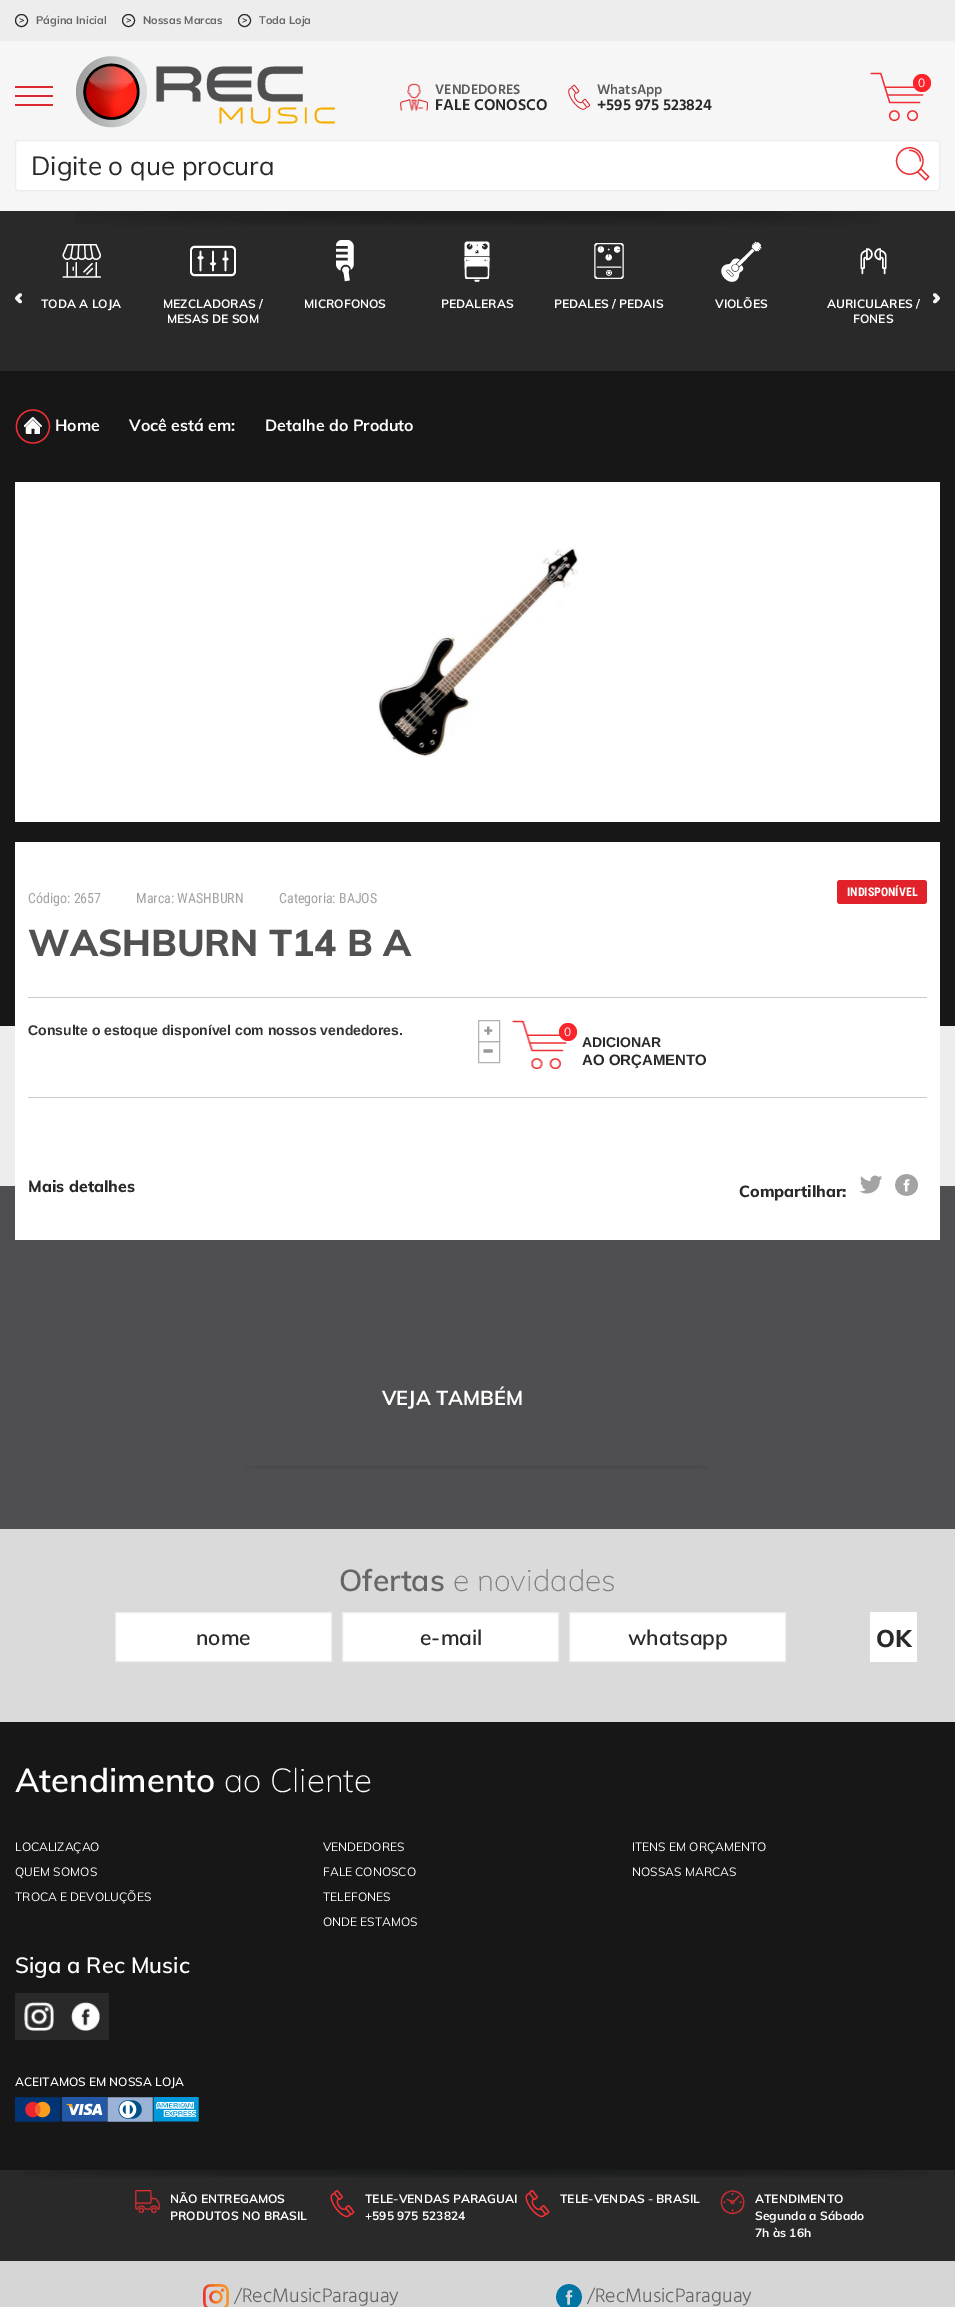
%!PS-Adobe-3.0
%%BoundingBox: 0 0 955 2307
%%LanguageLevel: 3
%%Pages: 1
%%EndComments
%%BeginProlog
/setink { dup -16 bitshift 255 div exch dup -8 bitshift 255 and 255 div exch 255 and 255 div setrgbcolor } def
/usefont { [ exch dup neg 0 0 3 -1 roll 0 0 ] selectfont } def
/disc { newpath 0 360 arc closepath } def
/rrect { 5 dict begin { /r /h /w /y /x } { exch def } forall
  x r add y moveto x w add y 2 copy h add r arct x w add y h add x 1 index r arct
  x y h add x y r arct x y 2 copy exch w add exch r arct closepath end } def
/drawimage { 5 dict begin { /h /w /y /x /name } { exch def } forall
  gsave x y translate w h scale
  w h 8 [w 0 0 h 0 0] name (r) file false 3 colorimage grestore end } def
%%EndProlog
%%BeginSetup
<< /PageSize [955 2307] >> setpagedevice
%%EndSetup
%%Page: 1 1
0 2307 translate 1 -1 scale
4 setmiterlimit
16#EDEDED setink
0 0 955 2307 rectfill
16#292929 setink
21.5 20.5 6 disc stroke
/Muli-Bold 9 usefont
19 23 moveto (>) show
/Muli-Bold 11 usefont
16#666666 setink
36 24 moveto (Página Inicial) show
16#292929 setink
128.5 20.5 6 disc stroke
/Muli-Bold 9 usefont
126 23 moveto (>) show
/Muli-Bold 11 usefont
16#666666 setink
143 24 moveto (Nossas Marcas) show
16#292929 setink
244.5 20.5 6 disc stroke
/Muli-Bold 9 usefont
242 23 moveto (>) show
/Muli-Bold 11 usefont
16#666666 setink
259 24 moveto (Toda Loja) show
16#F6F6F6 setink
0 41 955 170 rectfill
(img1.raw) 75 56 260 72 drawimage
(img2.raw) 870 72 54 49 drawimage
16#FE2329 setink
922 83 9 disc fill
/Muli-Regular 12 usefont
16#FFFFFF setink
918 87 moveto (0) show
[
    [15 86 38 2 16#DA2A30]
    [15 95 38 2 16#DA2A30]
    [15 104 38 2 16#DA2A30]
] { aload pop setink rectfill } forall
(img3.raw) 400 83 28 28 drawimage
/Hind-SemiBold 14 usefont
16#5C5C5C setink
435 94 moveto (VENDEDORES) show
/Hind-SemiBold 16 usefont
16#292929 setink
435 110 moveto (FALE CONOSCO) show
(img4.raw) 568 84 23 26 drawimage
/Hind-SemiBold 14 usefont
16#5C5C5C setink
597 94 moveto (WhatsApp) show
/Hind-SemiBold 16 usefont
16#292929 setink
597 110 moveto (+595 975 523824) show
16#FFFFFF setink
15.5 140.5 924 50 2.5 rrect gsave fill grestore
16#ECECEC setink
stroke
/Muli-Regular 26 usefont
16#292929 setink
31 175 moveto (Digite o que procura) show
(img5.raw) 895 147 35 34 drawimage
0 211 955 160 rectfill
(img6.raw) 75 211 805 15 drawimage
(img7.raw) 15 293 7 11 drawimage
(img8.raw) 933 293 7 11 drawimage
(img9.raw) 62 244 39 34 drawimage
/Muli-Bold 12 usefont
16#FFFFFF setink
41 308 moveto (TODA A LOJA) show
(img10.raw) 190 245 46 32 drawimage
163 308 moveto (MEZCLADORAS /) show
167 323 moveto (MESAS DE SOM) show
(img11.raw) 336 240 18 42 drawimage
304 308 moveto (MICROFONOS) show
(img12.raw) 464 241 26 41 drawimage
441 308 moveto (PEDALERAS) show
(img13.raw) 594 243 30 36 drawimage
554 308 moveto (PEDALES / PEDAIS) show
(img14.raw) 721 241 41 41 drawimage
715 308 moveto (VIOLÕES) show
(img15.raw) 860 248 27 27 drawimage
827 308 moveto (AURICULARES /) show
853 323 moveto (FONES) show
16#171717 setink
0 371 955 655 rectfill
(img16.raw) 15 409 36 35 drawimage
/Muli-Bold 16 usefont
16#FFFFFF setink
[
    [(Home) 55 431]
    [(Você está em:) 129 431]
    [(Detalhe do Produto) 265 431]
] { aload pop moveto show } forall
15 482 925 340 rectfill
(img17.raw) 378 547 201 210 drawimage
16#4F4E50 setink
0 1186 955 343 rectfill
16#FFFFFF setink
15 842 925 398 rectfill
/RobotoCondensed-Regular 14 usefont
16#A2A2A2 setink
[
    [(Código: 2657) 28 903]
    [(Marca: WASHBURN) 136 903]
    [(Categoria: BAJOS) 279 903]
] { aload pop moveto show } forall
16#E1222A setink
837 880 90 24 3 rrect fill
/RobotoCondensed-Bold 12 usefont
16#FFFFFF setink
847 896 moveto (INDISPONÍVEL) show
/Muli-ExtraBold 37 usefont
16#515151 setink
28 956 moveto (WASHBURN T14 B A) show
16#CACACA setink
28 997 899 1 rectfill
/LiberationSans-Bold 14 usefont
16#333333 setink
28 1035 moveto (Consulte o estoque disponível com nossos vendedores.) show
16#B2B2B2 setink
478.5 1020.5 21 21 rectstroke
/Roboto-Black 16 usefont
16#989898 setink
484 1036 moveto (+) show
16#B2B2B2 setink
478.5 1041.5 21 21 rectstroke
/Roboto-Medium 36 usefont
16#989898 setink
482 1062 moveto (-) show
(img18.raw) 512 1020 55 49 drawimage
16#FA252B setink
568 1032 9 disc fill
/Muli-Regular 12 usefont
16#FFFFFF setink
564 1036 moveto (0) show
/LiberationSans-Bold 14 usefont
16#292929 setink
582 1047 moveto (ADICIONAR) show
/LiberationSans-Bold 15 usefont
582 1065 moveto (AO ORÇAMENTO) show
16#CACACA setink
28 1097 899 1 rectfill
/Muli-ExtraBold 16 usefont
16#292929 setink
28 1192 moveto (Mais detalhes) show
739 1197 moveto (Compartilhar:) show
(img19.raw) 859 1175 23 19 drawimage
(img20.raw) 895 1174 23 22 drawimage
/Muli-Bold 20 usefont
16#FFFFFF setink
382 1405 moveto (VEJA TAMBÉM) show
(img21.raw) 246 1466 461 3 drawimage
16#DADADA setink
0 1529 955 193 rectfill
/Muli-SemiBold 30 usefont
16#666666 setink
339 1591 moveto (Ofertas) show
/Muli-ExtraLight 30 usefont
16#808080 setink
453 1591 moveto (e novidades) show
16#FFFFFF setink
115.5 1612.5 moveto 331.5 1612.5 lineto 331.5 1661.5 lineto 115.5 1661.5 lineto closepath gsave fill grestore
16#ECECEC setink
stroke
/Muli-SemiBold 21 usefont
16#292929 setink
196 1645 moveto (nome) show
16#FFFFFF setink
342.5 1612.5 moveto 558.5 1612.5 lineto 558.5 1661.5 lineto 342.5 1661.5 lineto closepath gsave fill grestore
16#ECECEC setink
stroke
16#292929 setink
420 1645 moveto (e-mail) show
16#FFFFFF setink
569.5 1612.5 moveto 785.5 1612.5 lineto 785.5 1661.5 lineto 569.5 1661.5 lineto closepath gsave fill grestore
16#ECECEC setink
stroke
16#292929 setink
628 1645 moveto (whatsapp) show
16#FFFFFF setink
870 1612 47 50 rectfill
/Muli-ExtraBold 24 usefont
16#292929 setink
876 1647 moveto (OK) show
16#171717 setink
0 1722 955 448 rectfill
/Muli-SemiBold 33 usefont
16#FFFFFF setink
15 1792 moveto (Atendimento) show
/Muli-ExtraLight 33 usefont
224 1792 moveto (ao Cliente) show
/Muli-Regular 12 usefont
[
    [(LOCALIZAÇAO) 15 1851]
    [(QUEM SOMOS) 15 1876]
    [(TROCA E DEVOLUÇÕES) 15 1901]
    [(VENDEDORES) 323 1851]
    [(FALE CONOSCO) 323 1876]
    [(TELEFONES) 323 1901]
    [(ONDE ESTAMOS) 323 1926]
    [(ITENS EM ORÇAMENTO) 632 1851]
    [(NOSSAS MARCAS) 632 1876]
] { aload pop moveto show } forall
/Muli-SemiBold 22 usefont
15 1973 moveto (Siga a Rec Music) show
16#292929 setink
15 1993 94 47 rectfill
(img22.raw) 24 2002 30 29 drawimage
(img23.raw) 71 2002 29 29 drawimage
/Muli-SemiBold 12 usefont
16#FFFFFF setink
15 2086 moveto (ACEITAMOS EM NOSSA LOJA) show
(img24.raw) 15 2097 46 25 drawimage
(img25.raw) 61 2097 46 25 drawimage
(img26.raw) 107 2097 46 25 drawimage
(img27.raw) 153 2097 46 25 drawimage
16#292929 setink
0 2170 955 91 rectfill
(img28.raw) 25 2170 904 8 drawimage
(img29.raw) 135 2190 25 23 drawimage
/Muli-Bold 12 usefont
16#FFFFFF setink
170 2203 moveto (NÃO ENTREGAMOS) show
170 2220 moveto (PRODUTOS NO BRASIL) show
(img30.raw) 330 2190 25 28 drawimage
365 2203 moveto (TELE-VENDAS PARAGUAI) show
365 2220 moveto (+595 975 523824) show
(img30.raw) 525 2190 25 28 drawimage
560 2203 moveto (TELE-VENDAS - BRASIL) show
(img31.raw) 720 2190 25 24 drawimage
[
    [(ATENDIMENTO) 755 2203]
    [(Segunda a Sábado) 755 2220]
    [(7h às 16h) 755 2237]
] { aload pop moveto show } forall
16#D6D6D6 setink
0 2261 955 46 rectfill
(img32.raw) 203 2284 26 23 drawimage
/Hind-Light 20 usefont
16#666666 setink
234 2302 moveto (/RecMusicParaguay) show
(img33.raw) 556 2284 26 23 drawimage
587 2302 moveto (/RecMusicParaguay) show
showpage
%%EOF
